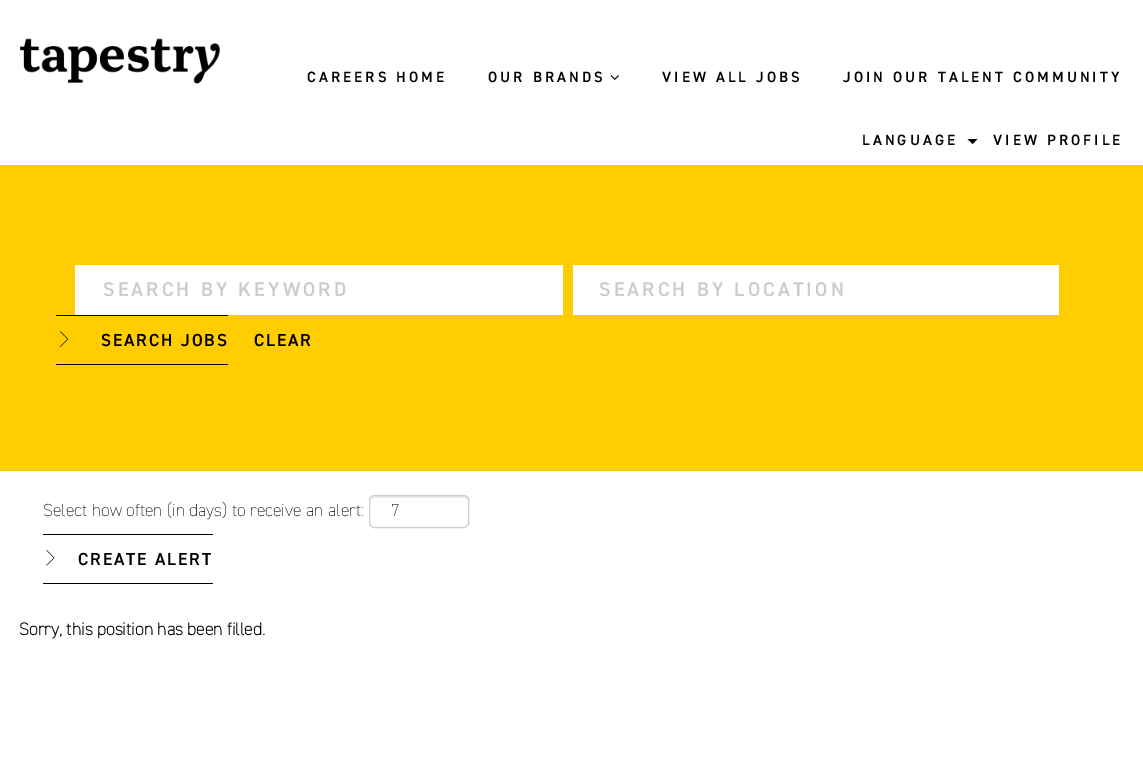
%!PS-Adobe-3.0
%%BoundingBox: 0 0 1143 784
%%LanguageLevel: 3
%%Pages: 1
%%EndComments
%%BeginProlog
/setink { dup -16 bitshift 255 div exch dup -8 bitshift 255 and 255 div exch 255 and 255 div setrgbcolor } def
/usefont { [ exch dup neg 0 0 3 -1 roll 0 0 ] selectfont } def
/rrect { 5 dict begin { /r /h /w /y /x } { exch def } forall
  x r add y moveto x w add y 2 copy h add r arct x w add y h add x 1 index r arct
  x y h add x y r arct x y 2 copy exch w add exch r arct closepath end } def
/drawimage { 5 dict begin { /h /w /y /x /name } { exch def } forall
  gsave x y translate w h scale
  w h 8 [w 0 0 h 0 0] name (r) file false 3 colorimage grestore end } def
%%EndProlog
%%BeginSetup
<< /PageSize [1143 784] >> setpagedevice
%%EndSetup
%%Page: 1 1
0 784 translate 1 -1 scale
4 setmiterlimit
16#FFFFFF setink
0 0 1143 784 rectfill
(img1.raw) 20 38 200 46 drawimage
/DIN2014-SemiBold 15 usefont
16#000000 setink
307 82 moveto 3.1 0 (CAREERS HOME) ashow
488 82 moveto 3.1 0 (OUR BRANDS) ashow
(img2.raw) 610 75 9 5 drawimage
662 82 moveto 3.1 0 (VIEW ALL JOBS) ashow
843 82 moveto 3.1 0 (JOIN OUR TALENT COMMUNITY) ashow
862 145 moveto 3.1 0 (LANGUAGE) ashow
967.5 139 moveto 977.5 139 lineto 972.5 144 lineto closepath fill
993 145 moveto 3.1 0 (VIEW PROFILE) ashow
16#FFCD00 setink
0 165 1143 306 rectfill
16#FFFFFF setink
75 265 488 50 rectfill
/DIN2014-SemiBold 20 usefont
16#CCCCCC setink
103 296 moveto 3.1 0 (SEARCH BY KEYWORD) ashow
16#FFFFFF setink
573 265 486 50 rectfill
16#CCCCCC setink
599 296 moveto 3.1 0 (SEARCH BY LOCATION) ashow
(img3.raw) 60 331 9 16 drawimage
16#000000 setink
56 315 172 1 rectfill
56 364 172 1 rectfill
/DIN2014-SemiBold 17.5 usefont
101 346 moveto 1.9 0 (SEARCH JOBS) ashow
254 346 moveto 1.9 0 (CLEAR) ashow
/DIN2014-ExtraLight 17.5 usefont
43 516 moveto (Select how often \(in days\) to receive an alert:) show
16#ECECEC setink
374 498 moveto 464 498 lineto 466 498 468 499 468 501 curveto 468 492 453 496 449 496 curveto 389 496 lineto 385 496 370 492 370 501 curveto 370 499 372 498 374 498 curveto closepath fill
16#CCCCCC setink
369.5 495.5 99 32 4.5 rrect stroke
16#000000 setink
391 516 moveto (7) show
(img4.raw) 46 550 9 16 drawimage
43 534 170 1 rectfill
43 583 170 1 rectfill
/DIN2014-SemiBold 17.5 usefont
78 565 moveto 1.9 0 (CREATE ALERT) ashow
/DIN2014-Bold 17.5 usefont
19 635 moveto (Sorry, this position has been filled.) show
showpage
%%EOF
